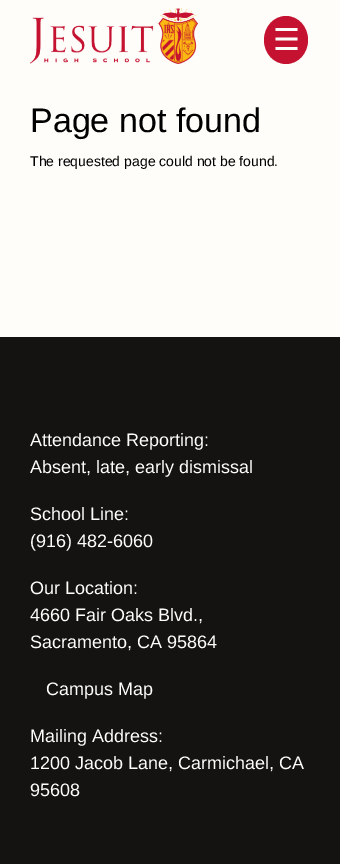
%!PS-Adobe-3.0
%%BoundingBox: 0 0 340 864
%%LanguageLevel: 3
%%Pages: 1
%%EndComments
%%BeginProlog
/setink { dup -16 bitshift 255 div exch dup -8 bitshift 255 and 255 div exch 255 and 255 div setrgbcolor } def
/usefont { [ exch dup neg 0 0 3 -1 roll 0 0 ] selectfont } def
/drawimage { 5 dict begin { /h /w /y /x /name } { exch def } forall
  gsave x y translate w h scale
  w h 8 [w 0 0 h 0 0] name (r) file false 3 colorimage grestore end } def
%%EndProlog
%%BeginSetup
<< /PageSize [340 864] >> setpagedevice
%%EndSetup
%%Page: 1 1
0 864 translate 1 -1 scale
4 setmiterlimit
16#FFFDFA setink
0 0 340 864 rectfill
(img1.raw) 30 8 168 56 drawimage
16#C41230 setink
286 16 moveto 298 16 308 26.5 308 40 curveto 308 53.5 298 64 286 64 curveto 274 64 264 53.5 264 40 curveto 264 26.5 274 16 286 16 curveto closepath fill
/DejaVuSans-Regular 30 usefont
16#FFFDFA setink
273 50 moveto (☰) show
/LiberationSans-Regular 34 usefont
16#000000 setink
30 132 moveto (Page not found) show
/LiberationSans-Regular 14 usefont
30 166 moveto (The requested page could not be found.) show
16#141311 setink
0 337 340 527 rectfill
/LiberationSans-Regular 18 usefont
16#FFFDFA setink
[
    [(Attendance Reporting:) 30 446]
    [(Absent, late, early dismissal) 30 473]
    [(School Line:) 30 520]
    [(\(916\) 482-6060) 30 547]
    [(Our Location:) 30 594]
    [(4660 Fair Oaks Blvd.,) 30 621]
    [(Sacramento, CA 95864) 30 648]
    [(Campus Map) 46 695]
    [(Mailing Address:) 30 742]
    [(1200 Jacob Lane, Carmichael, CA) 30 769]
    [(95608) 30 796]
] { aload pop moveto show } forall
showpage
%%EOF
